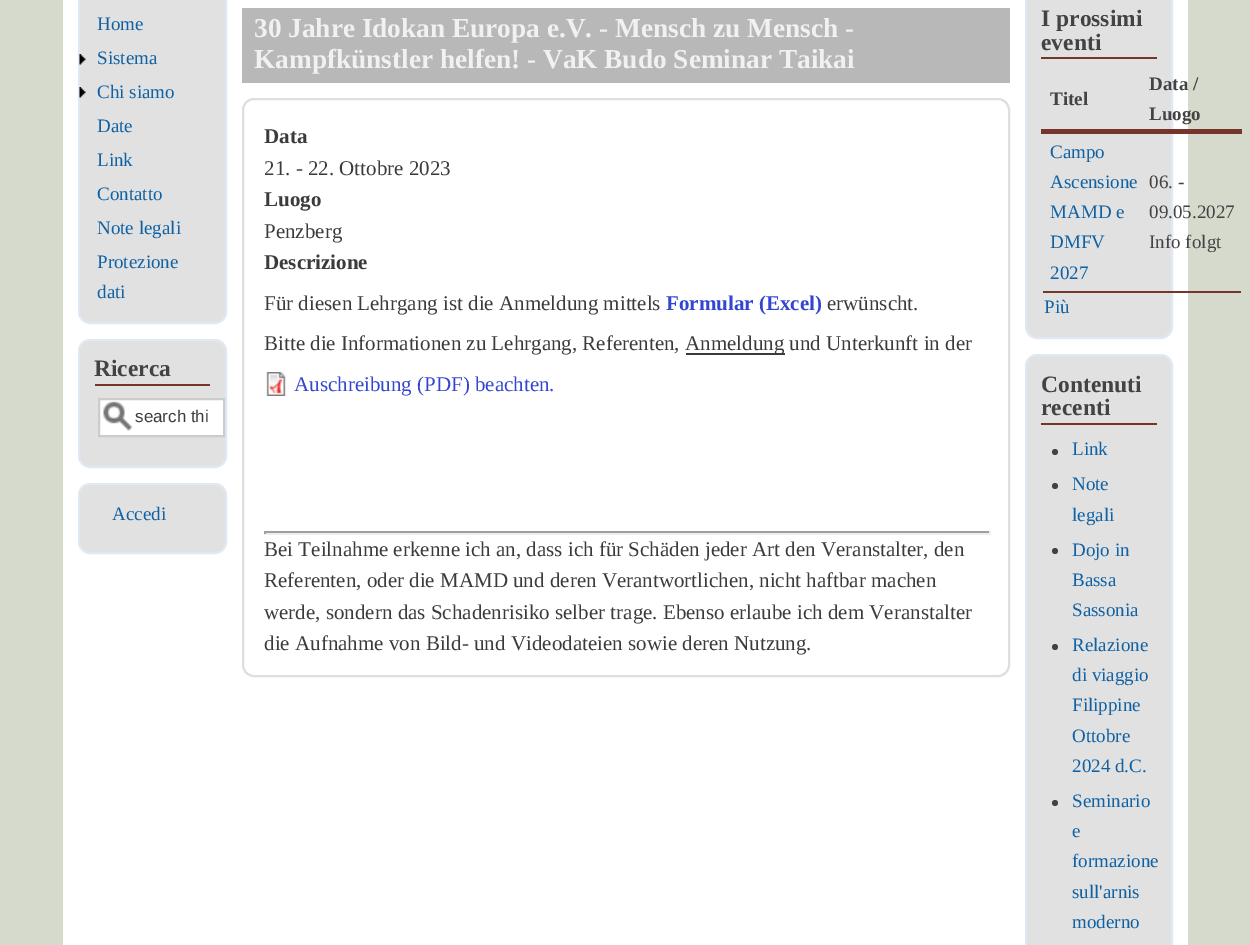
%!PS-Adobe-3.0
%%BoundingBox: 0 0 1250 945
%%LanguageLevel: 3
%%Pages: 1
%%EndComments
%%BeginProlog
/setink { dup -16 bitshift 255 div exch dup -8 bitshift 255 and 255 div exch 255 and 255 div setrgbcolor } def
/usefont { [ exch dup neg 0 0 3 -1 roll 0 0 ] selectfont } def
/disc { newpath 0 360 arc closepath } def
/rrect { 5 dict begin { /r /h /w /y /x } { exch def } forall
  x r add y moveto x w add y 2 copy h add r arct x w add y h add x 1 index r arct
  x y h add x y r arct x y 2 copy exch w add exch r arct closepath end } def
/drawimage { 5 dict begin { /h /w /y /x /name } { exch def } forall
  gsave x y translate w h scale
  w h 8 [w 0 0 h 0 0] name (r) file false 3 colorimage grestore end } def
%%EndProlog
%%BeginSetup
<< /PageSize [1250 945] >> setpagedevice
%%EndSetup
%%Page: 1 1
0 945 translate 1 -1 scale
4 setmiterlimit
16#D6DACD setink
0 0 1250 945 rectfill
16#FFFFFF setink
63 0 1125 945 rectfill
16#E1E1E1 setink
79 -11 147 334 11 rrect gsave fill grestore
16#E1E8F5 setink
2 setlinewidth
stroke
/LiberationSerif-Regular 19 usefont
16#0F61A3 setink
97 30 moveto (Home) show
(img1.raw) 79 54 7 11 drawimage
97 64 moveto (Sistema) show
(img1.raw) 79 87 7 11 drawimage
[
    [(Chi siamo) 97 98]
    [(Date) 97 132]
    [(Link) 97 166]
    [(Contatto) 97 200]
    [(Note legali) 97 234]
    [(Protezione) 97 268]
    [(dati) 97 298]
] { aload pop moveto show } forall
16#E1E1E1 setink
79 340 147 127 11 rrect gsave fill grestore
16#E1E8F5 setink
stroke
16#76352A setink
95 384 115 2 rectfill
/LiberationSerif-Bold 23.5 usefont
16#434343 setink
94 376 moveto (Ricerca) show
16#FFFFFF setink
100 400 123 35 rectfill
(img2.raw) 103 401 30 30 drawimage
16#CCCCCC setink
99 399 125 37 rectstroke
/LiberationSans-Regular 17 usefont
16#3B3B3B setink
135 422 moveto (search thi) show
16#E1E1E1 setink
79 484 147 69 11 rrect gsave fill grestore
16#E1E8F5 setink
stroke
/LiberationSerif-Regular 19 usefont
16#0F61A3 setink
112 520 moveto (Accedi) show
16#B8B8B8 setink
242 8 768 75 rectfill
/LiberationSerif-Bold 27.3 usefont
16#F1F1F1 setink
254 37 moveto (30 Jahre Idokan Europa e.V. - Mensch zu Mensch -) show
254 68 moveto (Kampfkünstler helfen! - VaK Budo Seminar Taikai) show
16#DEDEDE setink
243 99 766 577 11 rrect stroke
/LiberationSerif-Bold 21 usefont
16#3B3B3B setink
264 143 moveto (Data) show
/LiberationSerif-Regular 21 usefont
264 175 moveto (21. - 22. Ottobre 2023) show
/LiberationSerif-Bold 21 usefont
264 206 moveto (Luogo) show
/LiberationSerif-Regular 21 usefont
264 238 moveto (Penzberg) show
/LiberationSerif-Bold 21 usefont
264 269 moveto (Descrizione) show
/LiberationSerif-Regular 21 usefont
264 310 moveto (Für diesen Lehrgang ist die Anmeldung mittels) show
/LiberationSerif-Bold 21 usefont
16#3345D1 setink
666 310 moveto (Formular \(Excel\)) show
/LiberationSerif-Regular 21 usefont
16#3B3B3B setink
827 310 moveto (erwünscht.) show
264 350 moveto (Bitte die Informationen zu Lehrgang, Referenten,) show
686 353 99 2 rectfill
685 350 moveto (Anmeldung und Unterkunft in der) show
(img3.raw) 266 372 20 24 drawimage
16#3345D1 setink
294 391 moveto (Auschreibung \(PDF\) beachten.) show
[
    [264 531 726 2 16#9F9F9F]
    [989 531 2 3 16#EEEEEE]
    [264 533 726 2 16#EEEEEE]
    [264 531 2 3 16#9F9F9F]
] { aload pop setink rectfill } forall
16#3B3B3B setink
[
    [(Bei Teilnahme erkenne ich an, dass ich für Schäden jeder Art den Veranstalter, den) 264 556]
    [(Referenten, oder die MAMD und deren Verantwortlichen, nicht haftbar machen) 264 587]
    [(werde, sondern das Schadenrisiko selber trage. Ebenso erlaube ich dem Veranstalter) 264 619]
    [(die Aufnahme von Bild- und Videodateien sowie deren Nutzung.) 264 650]
] { aload pop moveto show } forall
16#E1E1E1 setink
1026 -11 146 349 11 rrect gsave fill grestore
16#E1E8F5 setink
stroke
16#76352A setink
1041 57 116 2 rectfill
/LiberationSerif-Bold 23.5 usefont
16#434343 setink
1041 26 moveto (I prossimi) show
1041 50 moveto (eventi) show
/LiberationSerif-Bold 19 usefont
1050 105 moveto (Titel) show
16#76352A setink
1041 129 201 5 rectfill
16#434343 setink
1149 90 moveto (Data /) show
1149 120 moveto (Luogo) show
/LiberationSerif-Regular 19 usefont
16#0F61A3 setink
[
    [(Campo) 1050 158]
    [(Ascensione) 1050 188]
    [(MAMD e) 1050 218]
    [(DMFV) 1050 248]
    [(2027) 1050 279]
] { aload pop moveto show } forall
16#76352A setink
1043 291 198 2 rectfill
16#434343 setink
[
    [(06. -) 1149 188]
    [(09.05.2027) 1149 218]
    [(Info folgt) 1149 248]
] { aload pop moveto show } forall
16#0F61A3 setink
1044 313 moveto (Più) show
16#E1E1E1 setink
1026 355 146 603 11 rrect gsave fill grestore
16#E1E8F5 setink
stroke
16#76352A setink
1041 423 116 2 rectfill
/LiberationSerif-Bold 23.5 usefont
16#434343 setink
1041 392 moveto (Contenuti) show
1041 415 moveto (recenti) show
1055 452 3 disc fill
/LiberationSerif-Regular 19 usefont
16#0F61A3 setink
1072 455 moveto (Link) show
16#434343 setink
1055 486 3 disc fill
16#0F61A3 setink
1072 490 moveto (Note) show
1072 521 moveto (legali) show
16#434343 setink
1055 551 3 disc fill
16#0F61A3 setink
[
    [(Dojo in) 1072 556]
    [(Bassa) 1072 586]
    [(Sassonia) 1072 616]
] { aload pop moveto show } forall
16#434343 setink
1055 647 3 disc fill
16#0F61A3 setink
[
    [(Relazione) 1072 651]
    [(di viaggio) 1072 681]
    [(Filippine) 1072 711]
    [(Ottobre) 1072 742]
    [(2024 d.C.) 1072 772]
] { aload pop moveto show } forall
16#434343 setink
1055 803 3 disc fill
16#0F61A3 setink
[
    [(Seminario) 1072 807]
    [(e) 1072 837]
    [(formazione) 1072 867]
    [(sull'arnis) 1072 898]
    [(moderno) 1072 928]
] { aload pop moveto show } forall
showpage
%%EOF
